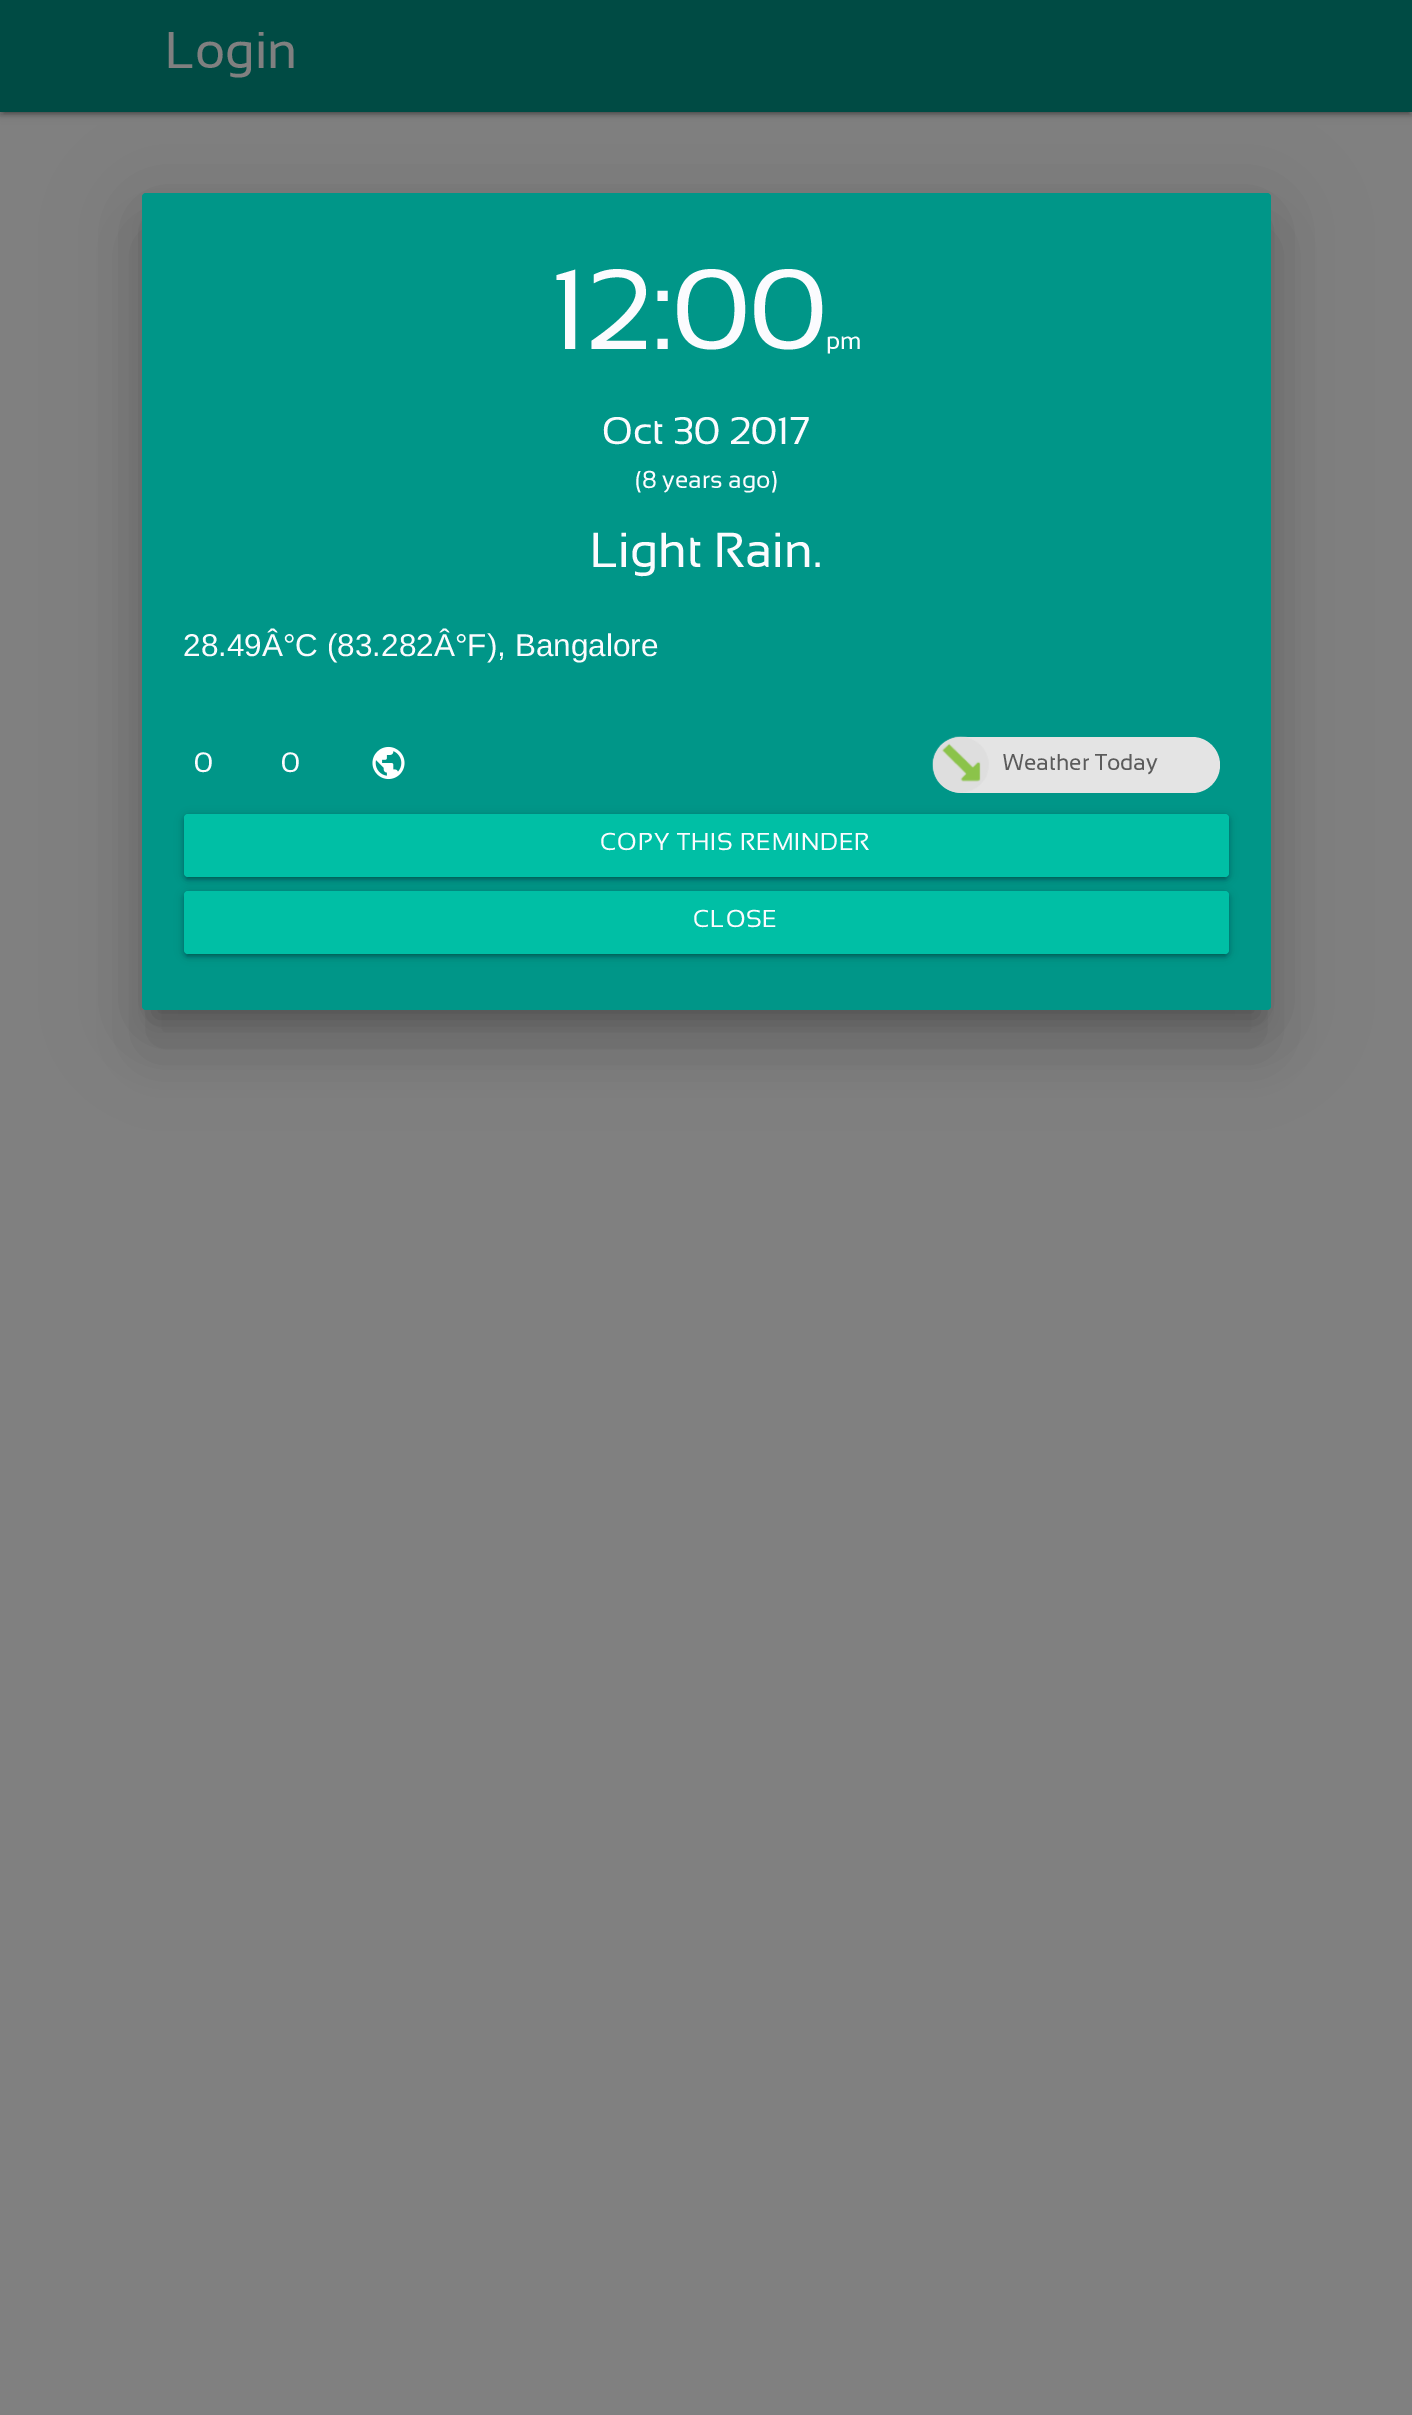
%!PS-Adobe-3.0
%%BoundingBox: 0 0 1412 2415
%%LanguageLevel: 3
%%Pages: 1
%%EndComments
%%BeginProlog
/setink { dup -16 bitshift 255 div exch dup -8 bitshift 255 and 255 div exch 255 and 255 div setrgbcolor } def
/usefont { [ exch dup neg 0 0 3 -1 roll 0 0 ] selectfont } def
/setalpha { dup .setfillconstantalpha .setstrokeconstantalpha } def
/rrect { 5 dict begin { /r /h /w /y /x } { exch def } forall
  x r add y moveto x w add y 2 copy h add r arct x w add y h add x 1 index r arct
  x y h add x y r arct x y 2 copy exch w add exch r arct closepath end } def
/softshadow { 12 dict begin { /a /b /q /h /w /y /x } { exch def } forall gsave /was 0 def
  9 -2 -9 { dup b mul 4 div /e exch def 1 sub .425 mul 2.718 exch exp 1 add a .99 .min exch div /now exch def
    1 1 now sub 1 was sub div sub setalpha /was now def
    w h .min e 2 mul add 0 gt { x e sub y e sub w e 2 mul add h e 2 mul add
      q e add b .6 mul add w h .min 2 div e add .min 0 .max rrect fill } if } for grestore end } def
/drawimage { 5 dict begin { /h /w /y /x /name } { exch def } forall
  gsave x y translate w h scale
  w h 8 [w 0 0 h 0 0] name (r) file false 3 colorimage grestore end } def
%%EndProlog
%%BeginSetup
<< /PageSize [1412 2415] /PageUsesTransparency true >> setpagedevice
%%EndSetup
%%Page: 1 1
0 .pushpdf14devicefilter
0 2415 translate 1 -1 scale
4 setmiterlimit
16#808080 setink
0 0 1412 2415 rectfill
16#000000 setink
0 2 1412 112 0 4.5 0.2 softshadow
4 9 1405 105 0 1 0.12 softshadow
0 4 1412 112 0 2 0.14 softshadow
16#004B44 setink
0 0 1412 112 rectfill
/Sansation-Regular 51.5 usefont
16#808080 setink
165 68 moveto (Login) show
16#000000 setink
154 224 1104 793 0 13 0.2 softshadow
128 194 1157 846 18 40 0.12 softshadow
137 229 1139 828 9 33 0.14 softshadow
16#009688 setink
142 193 1129 817 4 rrect fill
/Sansation-Regular 114 usefont
16#FBFBFE setink
551 349 moveto (12:00) show
/Sansation-Regular 24.5 usefont
826 349 moveto (pm) show
/Sansation-Regular 38.5 usefont
602 444 moveto (Oct 30 2017) show
/Sansation-Regular 24.5 usefont
635 488 moveto (\(8 years ago\)) show
/Sansation-Regular 49 usefont
590 567 moveto (Light Rain.) show
/LiberationSans-Regular 31.5 usefont
183 656 moveto (28.49Â°C \(83.282Â°F\), Bangalore) show
/Sansation-Regular 28 usefont
194 772 moveto (0) show
281 772 moveto (0) show
(img1.raw) 372 746 33 34 drawimage
16#E4E4E4 setink
933 737 287 56 28 rrect fill
(img2.raw) 932 736 57 57 drawimage
/Sansation-Regular 22.75 usefont
16#5B5B5B setink
1003 770 moveto (Weather Today) show
16#000000 setink
184 816 1045 63 4 4.5 0.2 softshadow
187 823 1038 56 0 1 0.12 softshadow
184 817 1045 63 4 2 0.14 softshadow
16#00BFA5 setink
184 814 1045 63 4 rrect fill
/Sansation-Regular 24.5 usefont
16#FBFBFE setink
600 850 moveto 0.9 0 (COPY THIS REMINDER) ashow
16#000000 setink
184 893 1045 63 4 4.5 0.2 softshadow
187 900 1038 56 0 1 0.12 softshadow
184 894 1045 63 4 2 0.14 softshadow
16#00BFA5 setink
184 891 1045 63 4 rrect fill
16#FBFBFE setink
693 927 moveto 0.9 0 (CLOSE) ashow
.poppdf14devicefilter showpage
%%EOF
